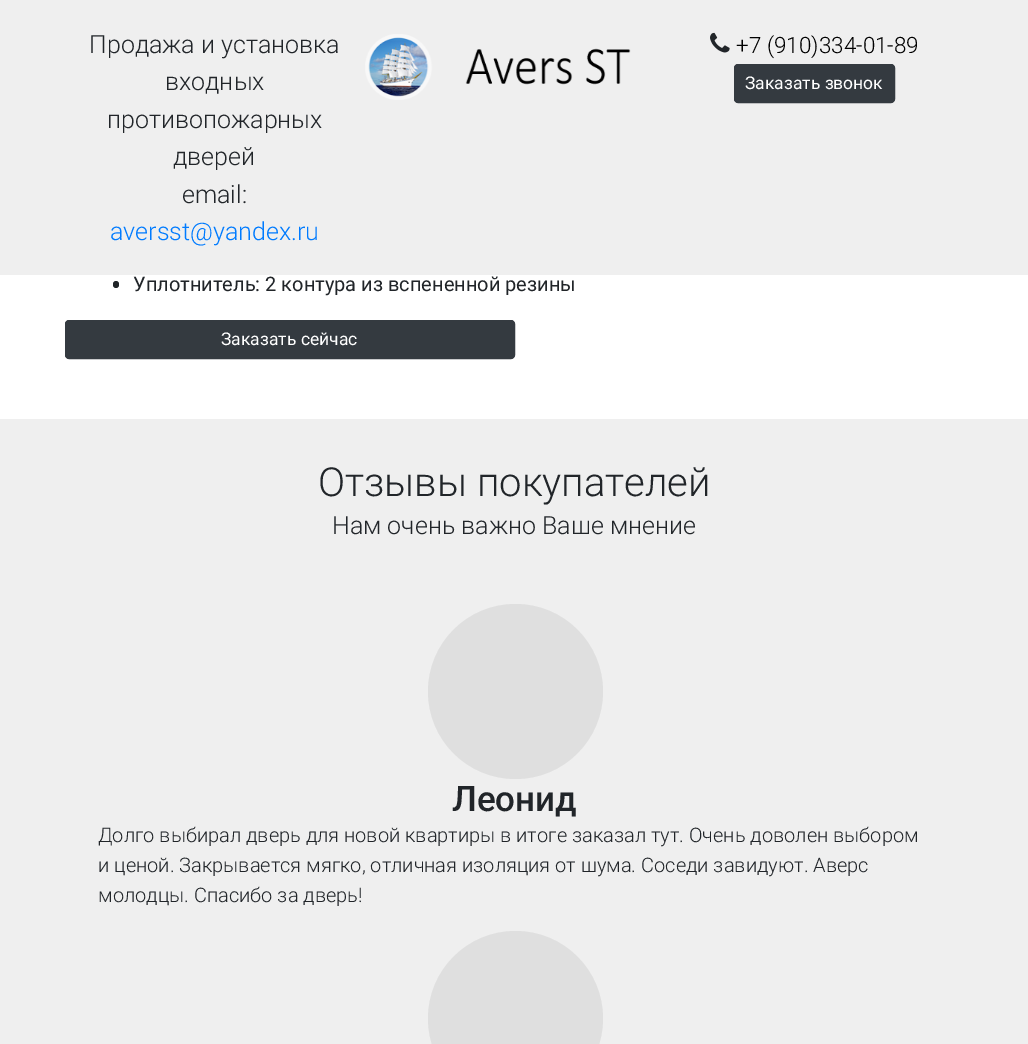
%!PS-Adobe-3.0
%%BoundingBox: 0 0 1028 1044
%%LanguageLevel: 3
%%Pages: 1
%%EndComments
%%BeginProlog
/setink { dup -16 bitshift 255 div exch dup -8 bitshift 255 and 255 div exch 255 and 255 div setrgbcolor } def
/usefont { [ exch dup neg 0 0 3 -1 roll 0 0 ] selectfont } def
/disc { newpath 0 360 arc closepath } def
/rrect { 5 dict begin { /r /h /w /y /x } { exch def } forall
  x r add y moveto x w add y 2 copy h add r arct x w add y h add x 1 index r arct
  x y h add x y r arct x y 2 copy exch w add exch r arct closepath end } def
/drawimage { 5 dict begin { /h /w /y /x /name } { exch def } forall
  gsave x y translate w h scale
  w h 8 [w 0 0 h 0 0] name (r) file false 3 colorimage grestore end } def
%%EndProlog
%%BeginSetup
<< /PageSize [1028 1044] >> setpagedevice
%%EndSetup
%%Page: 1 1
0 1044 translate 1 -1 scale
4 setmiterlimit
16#FFFFFF setink
0 0 1028 1044 rectfill
16#EFEFEF setink
0 0 1028 275 rectfill
/Roboto-Light 25 usefont
16#212529 setink
[
    [(Продажа и установка) 89 53]
    [(входных) 165 90]
    [(противопожарных) 107 128]
    [(дверей) 173 165]
    [(email:) 182 203]
] { aload pop moveto show } forall
16#007BFF setink
110 240 moveto (aversst@yandex.ru) show
(img1.raw) 365 34 266 66 drawimage
(img2.raw) 710 32 20 21 drawimage
/Roboto-Light 22.5 usefont
16#000000 setink
736 53 moveto (+7 \(910\)334-01-89) show
16#343A40 setink
734.5 64.5 160 38 3.5 rrect gsave fill grestore
stroke
/Roboto-Regular 17.5 usefont
16#FFFFFF setink
745 89 moveto (Заказать звонок) show
16#212529 setink
113 281 6 7 3 rrect fill
/Roboto-Regular 20 usefont
133 291 moveto (Уплотнитель: 2 контура из вспененной резины) show
16#343A40 setink
65.5 320.5 449 38 3.5 rrect gsave fill grestore
stroke
/Roboto-Regular 17.5 usefont
16#FFFFFF setink
221 345 moveto (Заказать сейчас) show
16#EFEFEF setink
0 419 1028 625 rectfill
/Roboto-Light 40 usefont
16#212529 setink
318 496 moveto (Отзывы покупателей) show
/Roboto-Light 25 usefont
332 534 moveto (Нам очень важно Ваше мнение) show
16#DFDFDF setink
515.5 691.5 87.5 disc fill
/Roboto-Medium 35 usefont
16#212529 setink
452 811 moveto (Леонид) show
/Roboto-Light 20 usefont
[
    [(Долго выбирал дверь для новой квартиры в итоге заказал тут. Очень доволен выбором) 98 842]
    [(и ценой. Закрывается мягко, отличная изоляция от шума. Соседи завидуют. Аверс) 98 872]
    [(молодцы. Спасибо за дверь!) 98 902]
] { aload pop moveto show } forall
16#DFDFDF setink
515.5 1018.5 87.5 disc fill
showpage
%%EOF
